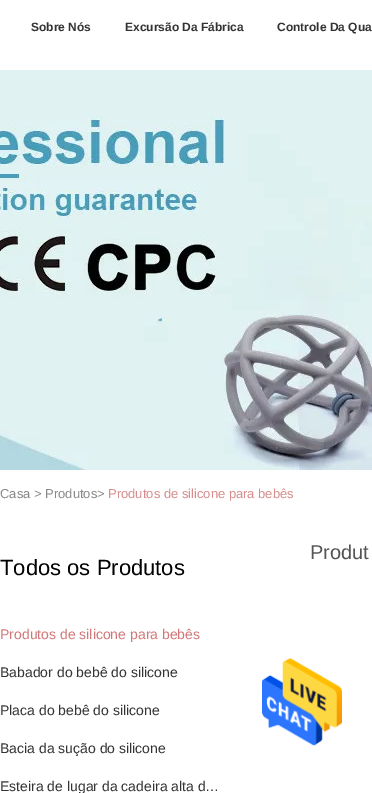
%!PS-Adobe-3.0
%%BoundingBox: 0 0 372 793
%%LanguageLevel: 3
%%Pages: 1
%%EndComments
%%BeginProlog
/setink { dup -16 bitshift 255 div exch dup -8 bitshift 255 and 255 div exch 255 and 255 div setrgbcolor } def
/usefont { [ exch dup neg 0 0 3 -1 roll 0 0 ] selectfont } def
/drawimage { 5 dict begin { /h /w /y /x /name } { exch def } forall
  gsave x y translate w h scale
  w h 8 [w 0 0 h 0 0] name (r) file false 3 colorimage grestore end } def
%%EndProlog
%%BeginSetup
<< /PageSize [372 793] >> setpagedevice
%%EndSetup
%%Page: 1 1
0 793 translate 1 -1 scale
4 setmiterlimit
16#FFFFFF setink
0 0 372 793 rectfill
/LiberationSans-Bold 12 usefont
16#333333 setink
[
    [(Sobre Nós) 31 31]
    [(Excursão Da Fábrica) 125 31]
    [(Controle Da Qua) 277 31]
] { aload pop moveto show } forall
(img1.raw) 0 70 372 400 drawimage
/LiberationSans-Regular 13 usefont
16#888888 setink
0 498 moveto (Casa > Produtos>) show
16#D88D8D setink
108 498 moveto (Produtos de silicone para bebês) show
/LiberationSans-Regular 20 usefont
16#555555 setink
310 559 moveto (Produt) show
/LiberationSans-Regular 22 usefont
16#000000 setink
0 575 moveto (Todos os Produtos) show
/LiberationSans-Regular 14 usefont
16#D27777 setink
0 639 moveto (Produtos de silicone para bebês) show
16#333333 setink
[
    [(Babador do bebê do silicone) 0 677]
    [(Placa do bebê do silicone) 0 715]
    [(Bacia da sução do silicone) 0 753]
    [(Esteira de lugar da cadeira alta d…) 0 791]
] { aload pop moveto show } forall
(img2.raw) 262 658 80 88 drawimage
showpage
%%EOF
